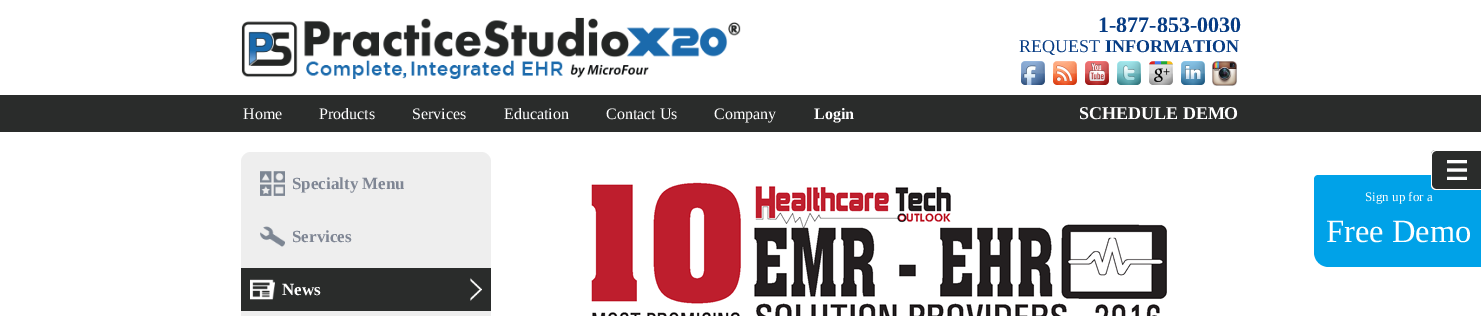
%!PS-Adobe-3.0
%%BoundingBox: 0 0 1481 316
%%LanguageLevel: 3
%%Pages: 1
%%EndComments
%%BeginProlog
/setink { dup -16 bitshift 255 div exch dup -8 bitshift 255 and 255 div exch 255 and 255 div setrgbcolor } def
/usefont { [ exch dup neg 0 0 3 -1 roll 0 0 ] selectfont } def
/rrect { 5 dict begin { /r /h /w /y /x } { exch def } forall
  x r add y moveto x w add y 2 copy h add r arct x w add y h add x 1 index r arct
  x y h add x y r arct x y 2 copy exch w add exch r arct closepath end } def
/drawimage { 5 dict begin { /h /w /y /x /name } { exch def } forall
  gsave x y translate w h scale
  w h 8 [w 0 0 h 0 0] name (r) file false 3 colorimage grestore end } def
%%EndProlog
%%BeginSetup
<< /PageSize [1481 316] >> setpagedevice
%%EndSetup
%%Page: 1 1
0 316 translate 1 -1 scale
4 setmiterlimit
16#FFFFFF setink
0 0 1481 316 rectfill
(img1.raw) 241 17 500 62 drawimage
/LiberationSerif-Bold 22 usefont
16#063C84 setink
1098 32 moveto (1-877-853-0030) show
16#FFFFFF setink
1015 32 226 28 4 rrect fill
/LiberationSerif-Regular 18 usefont
16#063C84 setink
1019 52 moveto (REQUEST) show
/LiberationSerif-Bold 18 usefont
1105 52 moveto (INFORMATION) show
(img2.raw) 1021 61 24 24 drawimage
(img3.raw) 1053 61 24 24 drawimage
(img4.raw) 1085 61 24 24 drawimage
(img5.raw) 1117 61 24 24 drawimage
(img6.raw) 1149 61 24 24 drawimage
(img7.raw) 1181 61 24 24 drawimage
(img8.raw) 1212 61 25 25 drawimage
16#2A2C2B setink
0 95 1481 37 rectfill
/LiberationSerif-Regular 16 usefont
16#FFFFFF setink
[
    [(Home) 243 119]
    [(Products) 319 119]
    [(Services) 412 119]
    [(Education) 504 119]
    [(Contact Us) 606 119]
    [(Company) 714 119]
] { aload pop moveto show } forall
/LiberationSerif-Bold 16 usefont
814 119 moveto (Login) show
/LiberationSerif-Bold 18 usefont
1079 119 moveto (SCHEDULE DEMO) show
16#00A2E8 setink
1318 175 moveto 1481 175 lineto 1481 267 lineto 1329 267 lineto 1320.5 267 1314 260.5 1314 252 curveto 1314 179 lineto 1314 177 1316 175 1318 175 curveto closepath fill
16#2A2C2B setink
1436 150 moveto 1481 150 lineto 1481 190 lineto 1436 190 lineto 1433 190 1431 188 1431 185 curveto 1431 155 lineto 1431 152 1433 150 1436 150 curveto closepath fill
(img9.raw) 1447 160 20 20 drawimage
16#FFFFFF setink
1436 150 moveto 1481 150 lineto 1481 190 lineto 1436 190 lineto 1433 190 1431 188 1431 185 curveto 1431 155 lineto 1431 152 1433 150 1436 150 curveto closepath 1436 151 moveto 1481 151 lineto 1481 189 lineto 1436 189 lineto 1434 189 1432 187 1432 185 curveto 1432 155 lineto 1432 153 1434 151 1436 151 curveto closepath eofill
16#EEEEEE setink
241 152 250 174 10 rrect fill
(img10.raw) 260 171 25 25 drawimage
/LiberationSerif-Bold 17 usefont
16#7F8694 setink
292 189 moveto (Specialty Menu) show
(img11.raw) 260 226 25 21 drawimage
292 242 moveto (Services) show
16#2A2C2B setink
241 268 250 43 rectfill
(img12.raw) 250 279 25 21 drawimage
16#FFFFFF setink
282 295 moveto (News) show
(img13.raw) 470 278 12 23 drawimage
(img14.raw) 591 182 576 134 drawimage
/LiberationSerif-Regular 13 usefont
1365 201 moveto (Sign up for a) show
/LiberationSerif-Regular 32.5 usefont
1326 242 moveto (Free Demo) show
showpage
%%EOF
